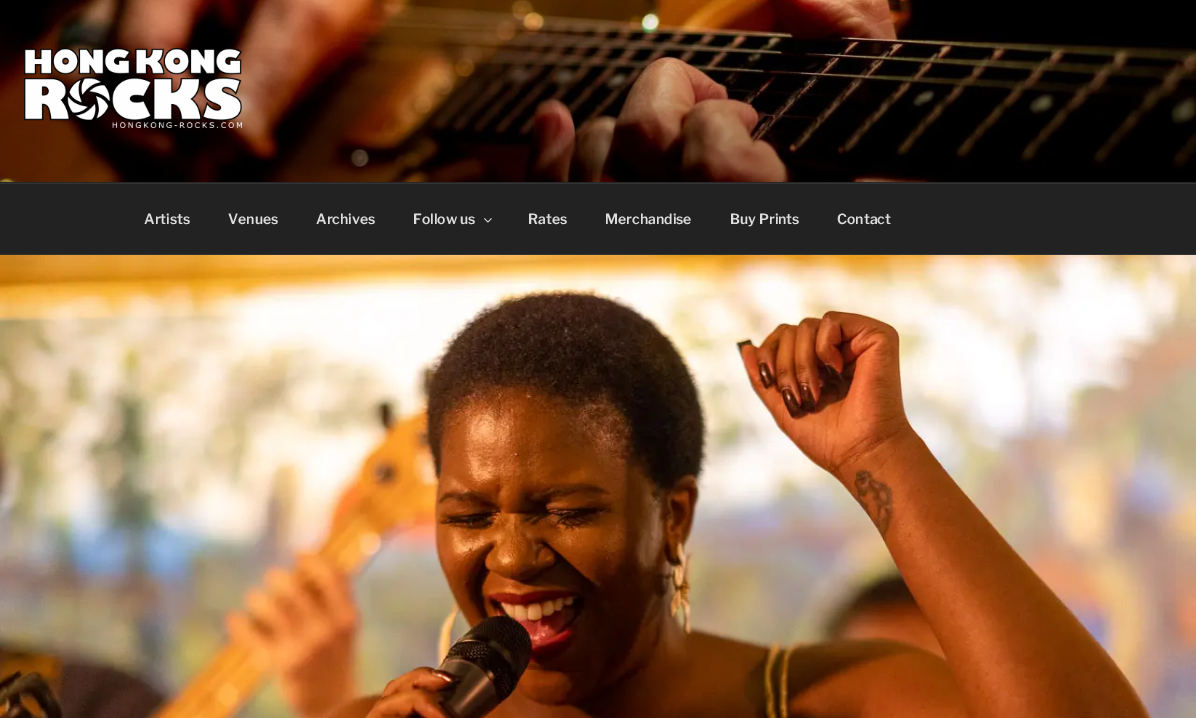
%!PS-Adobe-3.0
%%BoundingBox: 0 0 1196 718
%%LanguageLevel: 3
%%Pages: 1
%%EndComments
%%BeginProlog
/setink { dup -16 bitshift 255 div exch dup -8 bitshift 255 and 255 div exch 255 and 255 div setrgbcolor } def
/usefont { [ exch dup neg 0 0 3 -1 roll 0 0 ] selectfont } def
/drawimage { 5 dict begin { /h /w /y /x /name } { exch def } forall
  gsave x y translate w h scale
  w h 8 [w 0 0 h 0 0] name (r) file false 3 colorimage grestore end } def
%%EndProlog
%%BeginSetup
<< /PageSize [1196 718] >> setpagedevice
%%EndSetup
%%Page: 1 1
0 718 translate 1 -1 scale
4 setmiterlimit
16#FFFFFF setink
0 0 1196 718 rectfill
16#262626 setink
0 182 1196 1 rectfill
(img1.raw) 0 0 1196 182 drawimage
(img2.raw) 24 48 218 80 drawimage
[
    [0 184 1196 70 16#222222]
    [0 183 1196 1 16#333333]
    [0 254 1196 1 16#333333]
] { aload pop setink rectfill } forall
/LibreFranklin-Thin 14 usefont
16#DDDDDD setink
[
    [(Artists) 144 224]
    [(Venues) 228 224]
    [(Archives) 316 224]
    [(Follow us) 413 224]
] { aload pop moveto show } forall
(img3.raw) 484 218 8 5 drawimage
[
    [(Rates) 528 224]
    [(Merchandise) 605 224]
    [(Buy Prints) 730 224]
    [(Contact) 837 224]
] { aload pop moveto show } forall
(img4.raw) 0 255 1196 463 drawimage
showpage
%%EOF
